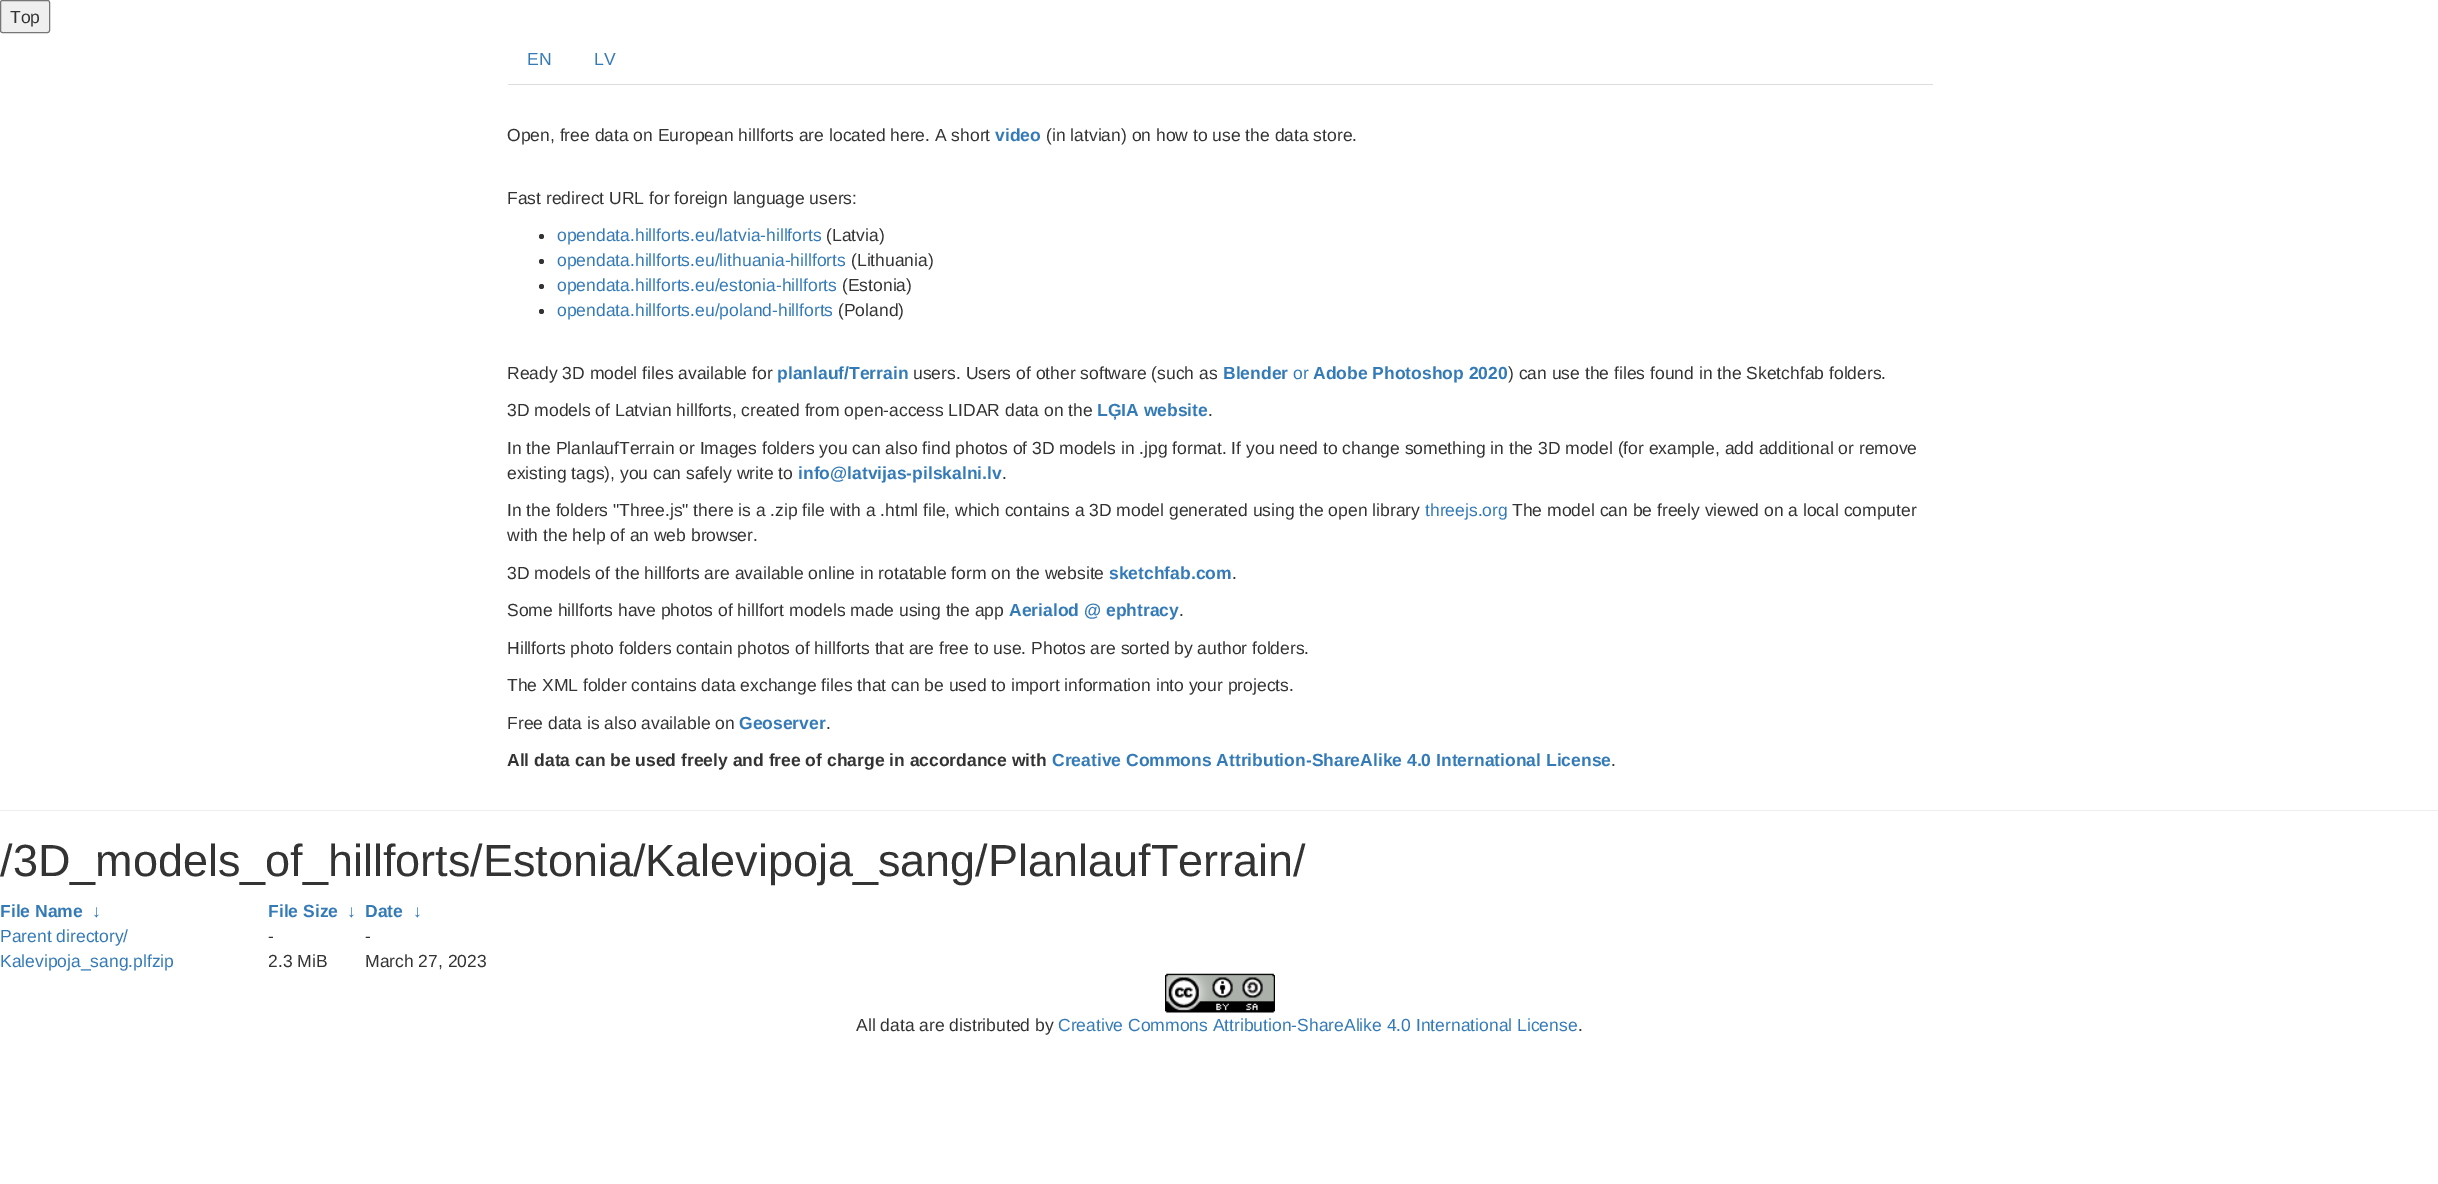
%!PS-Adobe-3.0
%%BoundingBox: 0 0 2438 1184
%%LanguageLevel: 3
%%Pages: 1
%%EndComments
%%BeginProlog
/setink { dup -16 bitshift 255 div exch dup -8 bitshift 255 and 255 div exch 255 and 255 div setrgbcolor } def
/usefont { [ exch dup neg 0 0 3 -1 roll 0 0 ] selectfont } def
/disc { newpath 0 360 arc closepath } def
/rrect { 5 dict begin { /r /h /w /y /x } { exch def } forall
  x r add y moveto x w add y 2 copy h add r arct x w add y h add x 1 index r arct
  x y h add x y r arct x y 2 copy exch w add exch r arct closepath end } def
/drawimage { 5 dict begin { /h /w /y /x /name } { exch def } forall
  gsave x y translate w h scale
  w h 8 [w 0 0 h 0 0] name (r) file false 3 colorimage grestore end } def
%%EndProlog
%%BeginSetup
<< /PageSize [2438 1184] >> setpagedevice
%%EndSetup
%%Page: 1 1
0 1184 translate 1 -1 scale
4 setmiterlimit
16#FFFFFF setink
0 0 2438 1184 rectfill
16#EFEFEF setink
0.5 0.5 49 32 2 rrect gsave fill grestore
16#767676 setink
stroke
/LiberationSans-Regular 17.5 usefont
16#333333 setink
10 23 moveto (Top) show
16#DDDDDD setink
508 84 1425 1 rectfill
16#337AB7 setink
527 65 moveto (EN) show
594 65 moveto (LV) show
16#333333 setink
507 141 moveto (Open, free data on European hillforts are located here. A short) show
/LiberationSans-Bold 17.5 usefont
16#337AB7 setink
995 141 moveto (video) show
/LiberationSans-Regular 17.5 usefont
16#333333 setink
1046 141 moveto (\(in latvian\) on how to use the data store.) show
507 204 moveto (Fast redirect URL for foreign language users:) show
541.5 236.5 2.5 disc fill
16#337AB7 setink
557 241 moveto (opendata.hillforts.eu/latvia-hillforts) show
16#333333 setink
826 241 moveto (\(Latvia\)) show
541.5 261.5 2.5 disc fill
16#337AB7 setink
557 266 moveto (opendata.hillforts.eu/lithuania-hillforts) show
16#333333 setink
851 266 moveto (\(Lithuania\)) show
541.5 286.5 2.5 disc fill
16#337AB7 setink
557 291 moveto (opendata.hillforts.eu/estonia-hillforts) show
16#333333 setink
842 291 moveto (\(Estonia\)) show
541.5 311.5 2.5 disc fill
16#337AB7 setink
557 316 moveto (opendata.hillforts.eu/poland-hillforts) show
16#333333 setink
838 316 moveto (\(Poland\)) show
507 379 moveto (Ready 3D model files available for) show
/LiberationSans-Bold 17.5 usefont
16#337AB7 setink
777 379 moveto (planlauf/Terrain) show
/LiberationSans-Regular 17.5 usefont
16#333333 setink
913 379 moveto (users. Users of other software \(such as) show
/LiberationSans-Bold 17.5 usefont
16#337AB7 setink
1223 379 moveto (Blender) show
/LiberationSans-Regular 17.5 usefont
1293 379 moveto (or) show
/LiberationSans-Bold 17.5 usefont
1313 379 moveto (Adobe Photoshop 2020) show
/LiberationSans-Regular 17.5 usefont
16#333333 setink
1508 379 moveto (\) can use the files found in the Sketchfab folders.) show
507 416 moveto (3D models of Latvian hillforts, created from open-access LIDAR data on the) show
/LiberationSans-Bold 17.5 usefont
16#337AB7 setink
1097 416 moveto (LĢIA website) show
/LiberationSans-Regular 17.5 usefont
16#333333 setink
[
    [(.) 1208 416]
    [(In the PlanlaufTerrain or Images folders you can also find photos of 3D models in .jpg format. If you need to change something in the 3D model \(for example, add additional or remove) 507 454]
    [(existing tags\), you can safely write to) 507 479]
] { aload pop moveto show } forall
/LiberationSans-Bold 17.5 usefont
16#337AB7 setink
798 479 moveto (info@latvijas-pilskalni.lv) show
/LiberationSans-Regular 17.5 usefont
16#333333 setink
1002 479 moveto (.) show
507 516 moveto (In the folders "Three.js" there is a .zip file with a .html file, which contains a 3D model generated using the open library) show
16#337AB7 setink
1425 516 moveto (threejs.org) show
16#333333 setink
[
    [(The model can be freely viewed on a local computer) 1512 516]
    [(with the help of an web browser.) 507 541]
    [(3D models of the hillforts are available online in rotatable form on the website) 507 579]
] { aload pop moveto show } forall
/LiberationSans-Bold 17.5 usefont
16#337AB7 setink
1109 579 moveto (sketchfab.com) show
/LiberationSans-Regular 17.5 usefont
16#333333 setink
1232 579 moveto (.) show
507 616 moveto (Some hillforts have photos of hillfort models made using the app) show
/LiberationSans-Bold 17.5 usefont
16#337AB7 setink
1009 616 moveto (Aerialod @ ephtracy) show
/LiberationSans-Regular 17.5 usefont
16#333333 setink
[
    [(.) 1179 616]
    [(Hillforts photo folders contain photos of hillforts that are free to use. Photos are sorted by author folders.) 507 654]
    [(The XML folder contains data exchange files that can be used to import information into your projects.) 507 691]
    [(Free data is also available on) 507 729]
] { aload pop moveto show } forall
/LiberationSans-Bold 17.5 usefont
16#337AB7 setink
739 729 moveto (Geoserver) show
/LiberationSans-Regular 17.5 usefont
16#333333 setink
826 729 moveto (.) show
/LiberationSans-Bold 17.5 usefont
507 766 moveto (All data can be used freely and free of charge in accordance with) show
16#337AB7 setink
1052 766 moveto (Creative Commons Attribution-ShareAlike 4.0 International License) show
/LiberationSans-Regular 17.5 usefont
16#333333 setink
1611 766 moveto (.) show
16#EEEEEE setink
0 810 2438 1 rectfill
/LiberationSans-Regular 45 usefont
16#333333 setink
0 876 moveto (/3D_models_of_hillforts/Estonia/Kalevipoja_sang/PlanlaufTerrain/) show
/LiberationSans-Bold 17.5 usefont
16#337AB7 setink
[
    [(File Name) 0 917]
    [(↓) 92 917]
    [(File Size) 268 917]
    [(↓) 347 917]
    [(Date) 365 917]
    [(↓) 413 917]
] { aload pop moveto show } forall
/LiberationSans-Regular 17.5 usefont
0 942 moveto (Parent directory/) show
16#333333 setink
268 942 moveto (-) show
365 942 moveto (-) show
16#337AB7 setink
0 967 moveto (Kalevipoja_sang.plfzip) show
16#333333 setink
268 967 moveto (2.3 MiB) show
365 967 moveto (March 27, 2023) show
(img1.raw) 1165 973 110 40 drawimage
856 1031 moveto (All data are distributed by) show
16#337AB7 setink
1058 1031 moveto (Creative Commons Attribution-ShareAlike 4.0 International License) show
16#333333 setink
1578 1031 moveto (.) show
showpage
%%EOF
